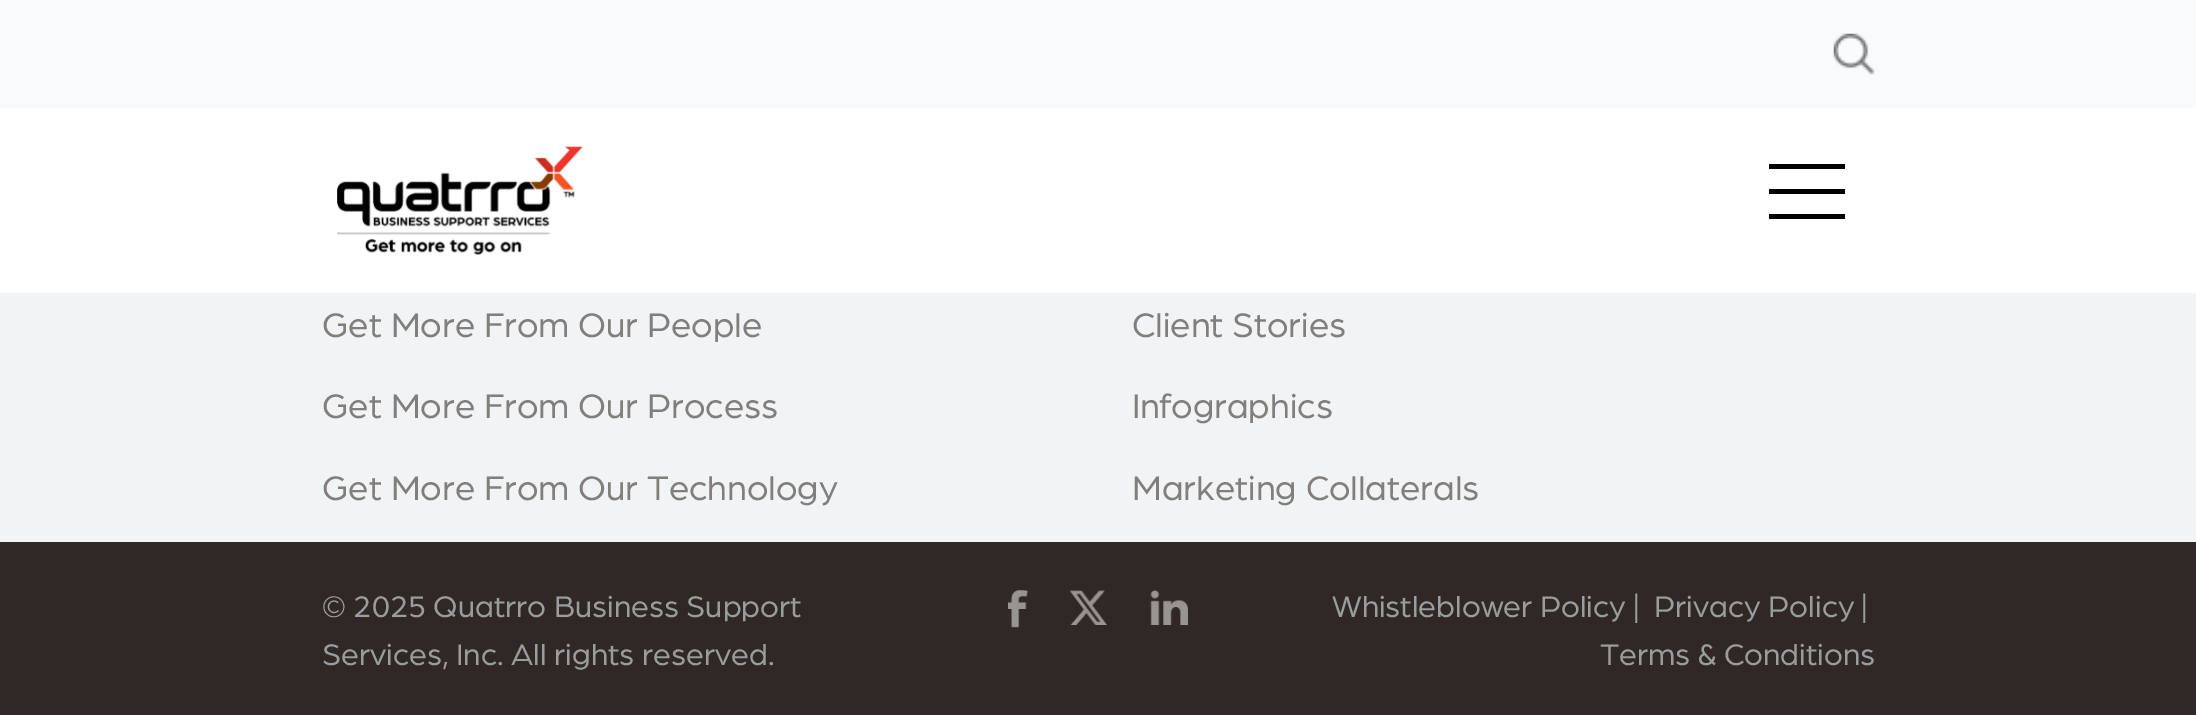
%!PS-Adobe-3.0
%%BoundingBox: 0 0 2196 715
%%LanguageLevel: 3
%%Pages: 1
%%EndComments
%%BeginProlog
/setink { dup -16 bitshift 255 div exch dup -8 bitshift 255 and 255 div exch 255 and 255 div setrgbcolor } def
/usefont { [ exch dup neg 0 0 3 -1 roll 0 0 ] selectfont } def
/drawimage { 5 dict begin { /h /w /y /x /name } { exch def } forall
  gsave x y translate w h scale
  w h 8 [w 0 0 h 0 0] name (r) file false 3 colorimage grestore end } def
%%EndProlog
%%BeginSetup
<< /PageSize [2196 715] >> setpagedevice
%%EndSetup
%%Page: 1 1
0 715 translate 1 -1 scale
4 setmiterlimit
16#F1F3F5 setink
0 0 2196 715 rectfill
16#F8FAFC setink
0 0 2196 108 rectfill
(img1.raw) 1833 33 42 42 drawimage
16#FFFFFF setink
0 108 2196 185 rectfill
(img2.raw) 337 146 246 109 drawimage
[
    [1769 164 76 5 16#000000]
    [1769 189 76 5 16#000000]
    [1769 214 76 5 16#000000]
] { aload pop setink rectfill } forall
/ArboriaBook-Regular 36.25 usefont
16#817F7C setink
[
    [(Get More From Our People) 322 337]
    [(Get More From Our Process) 322 418]
    [(Get More From Our Technology) 322 500]
    [(Client Stories) 1132 337]
    [(Infographics) 1132 418]
    [(Marketing Collaterals) 1132 500]
] { aload pop moveto show } forall
16#2F2825 setink
0 542 2196 173 rectfill
/ArboriaBook-Regular 31.75 usefont
16#9A9C9D setink
322 617 moveto (© 2025 Quatrro Business Support) show
322 665 moveto (Services, Inc. All rights reserved.) show
(img3.raw) 1008 590 21 38 drawimage
(img4.raw) 1069 590 38 35 drawimage
(img5.raw) 1150 590 38 35 drawimage
[
    [(Whistleblower Policy) 1332 617]
    [(|) 1633 617]
    [(Privacy Policy) 1654 617]
    [(|) 1861 617]
    [(Terms & Conditions) 1600 665]
] { aload pop moveto show } forall
showpage
%%EOF
